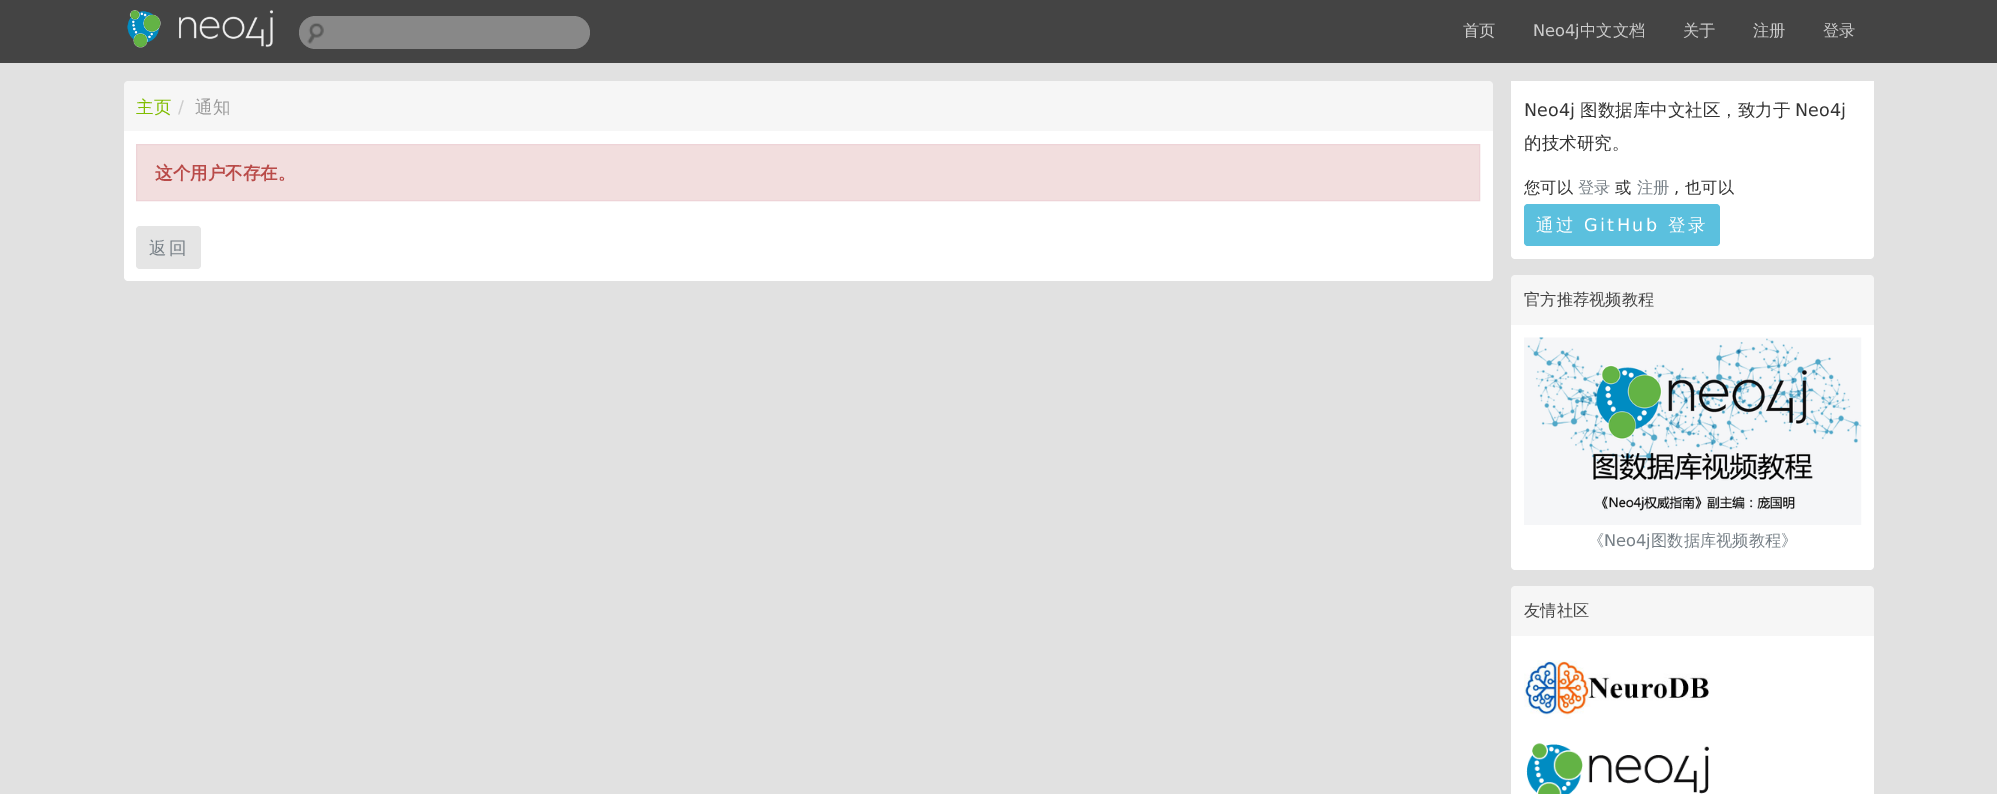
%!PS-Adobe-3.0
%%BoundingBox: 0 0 1997 794
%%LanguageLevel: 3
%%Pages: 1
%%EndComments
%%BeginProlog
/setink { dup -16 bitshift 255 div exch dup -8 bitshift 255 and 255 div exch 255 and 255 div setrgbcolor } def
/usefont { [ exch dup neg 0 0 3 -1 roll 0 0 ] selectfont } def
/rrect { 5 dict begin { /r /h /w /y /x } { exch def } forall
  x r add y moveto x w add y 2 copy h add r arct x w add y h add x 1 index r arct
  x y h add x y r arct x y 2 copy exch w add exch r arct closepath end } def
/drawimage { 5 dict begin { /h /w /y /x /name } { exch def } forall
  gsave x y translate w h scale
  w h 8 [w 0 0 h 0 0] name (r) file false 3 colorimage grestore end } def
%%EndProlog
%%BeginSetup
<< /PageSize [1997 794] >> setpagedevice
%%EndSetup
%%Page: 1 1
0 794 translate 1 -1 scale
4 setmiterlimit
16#E1E1E1 setink
0 0 1997 794 rectfill
16#444444 setink
0 0 1997 63 rectfill
(img1.raw) 127 10 146 38 drawimage
16#888888 setink
299 16 291 33 16.5 rrect fill
(img2.raw) 307 23 17 21 drawimage
/WenQuanYiZenHei-Medium 16.25 usefont
16#CCCCCC setink
1463 36 moveto (首页) show
/DejaVuSans-Regular 16.25 usefont
1533 36 moveto (Neo4j) show
/WenQuanYiZenHei-Medium 16.25 usefont
[
    [(中文文档) 1580 36]
    [(关于) 1683 36]
    [(注册) 1753 36]
    [(登录) 1823 36]
] { aload pop moveto show } forall
16#F6F6F6 setink
128 81 moveto 1489 81 lineto 1491 81 1493 83 1493 85 curveto 1493 131 lineto 124 131 lineto 124 85 lineto 124 83 126 81 128 81 curveto closepath fill
/WenQuanYiZenHei-Medium 17.5 usefont
16#80BD01 setink
136 113 moveto (主页) show
/DejaVuSans-Regular 17.5 usefont
16#CCCCCC setink
178 113 moveto (/) show
/WenQuanYiZenHei-Medium 17.5 usefont
16#999999 setink
195 113 moveto (通知) show
16#FFFFFF setink
124 131 moveto 1493 131 lineto 1493 277 lineto 1493 279 1491 281 1489 281 curveto 128 281 lineto 126 281 124 279 124 277 curveto closepath fill
16#F2DEDE setink
136.5 144.5 moveto 1479.5 144.5 lineto 1479.5 200.5 lineto 136.5 200.5 lineto closepath gsave fill grestore
16#EED3D7 setink
stroke
/WenQuanYiZenHei-Bold 17.5 usefont
16#B94A48 setink
155 179 moveto (这个用户不存在。) show
16#E5E5E5 setink
136 226 65 43 4 rrect fill
/WenQuanYiZenHei-Medium 17.5 usefont
16#778087 setink
149 254 moveto 2.5 0 (返回) ashow
16#FFFFFF setink
1511 81 moveto 1874 81 lineto 1874 255 lineto 1874 257 1872 259 1870 259 curveto 1515 259 lineto 1513 259 1511 257 1511 255 curveto closepath fill
/DejaVuSans-Regular 17.5 usefont
16#333333 setink
1524 116 moveto (Neo4j) show
/WenQuanYiZenHei-Medium 17.5 usefont
1580 116 moveto (图数据库中文社区，致力于) show
/DejaVuSans-Regular 17.5 usefont
1795 116 moveto (Neo4j) show
/WenQuanYiZenHei-Medium 17.5 usefont
1524 149 moveto (的技术研究。) show
/WenQuanYiZenHei-Medium 16.25 usefont
1524 193 moveto (您可以) show
16#778087 setink
1578 193 moveto (登录) show
16#333333 setink
1615 193 moveto (或) show
16#778087 setink
1637 193 moveto (注册) show
/DejaVuSans-Regular 16.25 usefont
16#333333 setink
1674 193 moveto (,) show
/WenQuanYiZenHei-Medium 16.25 usefont
1685 193 moveto (也可以) show
16#5BC0DE setink
1524 204 196 42 4 rrect fill
/WenQuanYiZenHei-Medium 17.5 usefont
16#FFFFFF setink
1536 231 moveto 2.5 0 (通过) ashow
/DejaVuSans-Regular 17.5 usefont
1584 231 moveto 2.5 0 (GitHub) ashow
/WenQuanYiZenHei-Medium 17.5 usefont
1668 231 moveto 2.5 0 (登录) ashow
16#F6F6F6 setink
1515 275 moveto 1870 275 lineto 1872 275 1874 277 1874 279 curveto 1874 325 lineto 1511 325 lineto 1511 279 lineto 1511 277 1513 275 1515 275 curveto closepath fill
/WenQuanYiZenHei-Medium 16.25 usefont
16#444444 setink
1524 305 moveto (官方推荐视频教程) show
16#FFFFFF setink
1511 325 moveto 1874 325 lineto 1874 566 lineto 1874 568 1872 570 1870 570 curveto 1515 570 lineto 1513 570 1511 568 1511 566 curveto closepath fill
(img3.raw) 1524 337 338 188 drawimage
16#778087 setink
1588 546 moveto (《) show
/DejaVuSans-Regular 16.25 usefont
1604 546 moveto (Neo4j) show
/WenQuanYiZenHei-Medium 16.25 usefont
1651 546 moveto (图数据库视频教程》) show
16#F6F6F6 setink
1515 586 moveto 1870 586 lineto 1872 586 1874 588 1874 590 curveto 1874 636 lineto 1511 636 lineto 1511 590 lineto 1511 588 1513 586 1515 586 curveto closepath fill
16#444444 setink
1524 616 moveto (友情社区) show
16#FFFFFF setink
1511 636 363 158 rectfill
(img4.raw) 1524 660 186 59 drawimage
(img5.raw) 1526 743 183 51 drawimage
showpage
%%EOF
